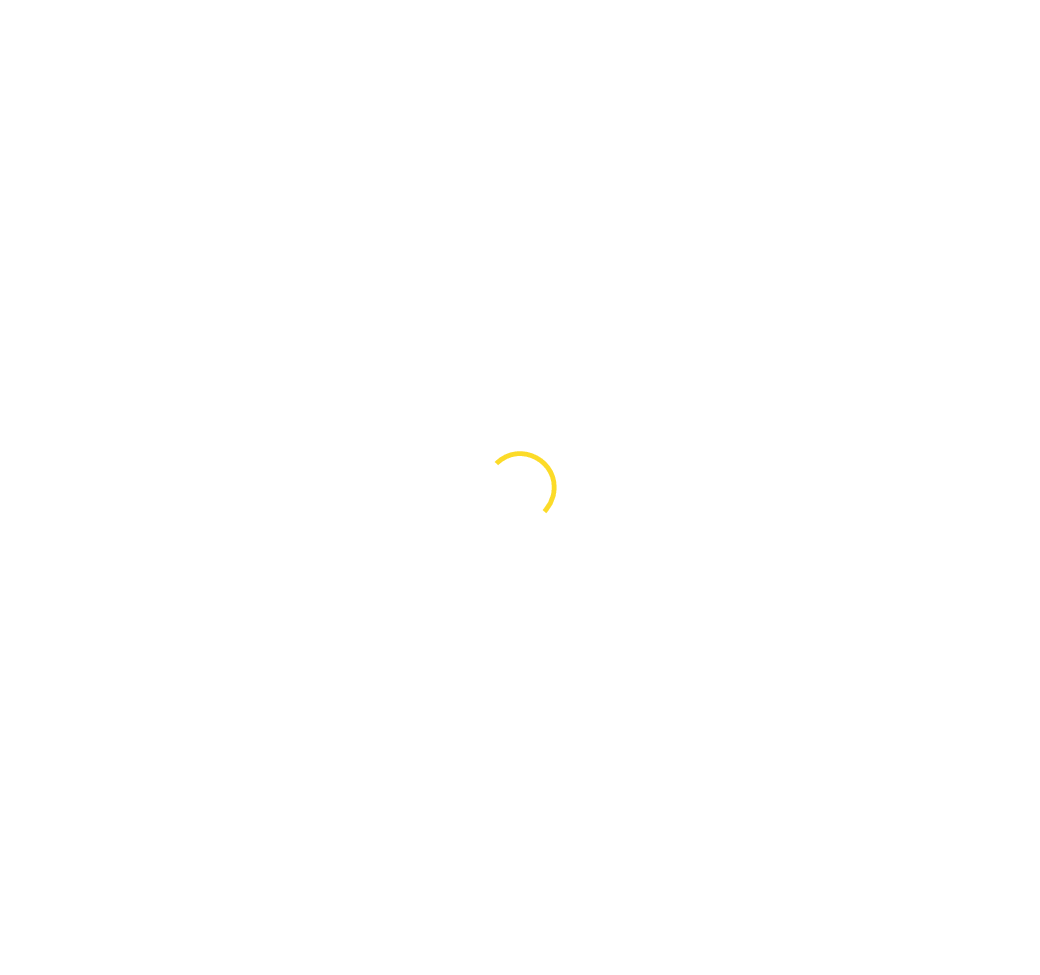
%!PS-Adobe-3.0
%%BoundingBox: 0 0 1040 975
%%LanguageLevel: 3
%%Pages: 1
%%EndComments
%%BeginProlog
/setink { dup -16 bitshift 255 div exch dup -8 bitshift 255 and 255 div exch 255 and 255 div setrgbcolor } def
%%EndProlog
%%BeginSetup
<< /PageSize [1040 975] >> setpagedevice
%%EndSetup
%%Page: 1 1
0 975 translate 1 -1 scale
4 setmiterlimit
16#FFFFFF setink
0 0 1040 975 rectfill
16#FCDB28 setink
4.5 setlinewidth
496.5 463.5 moveto 520 440 560 461.5 553.5 494 curveto 552.5 500.5 549 506.5 544.5 511.5 curveto stroke
showpage
%%EOF
